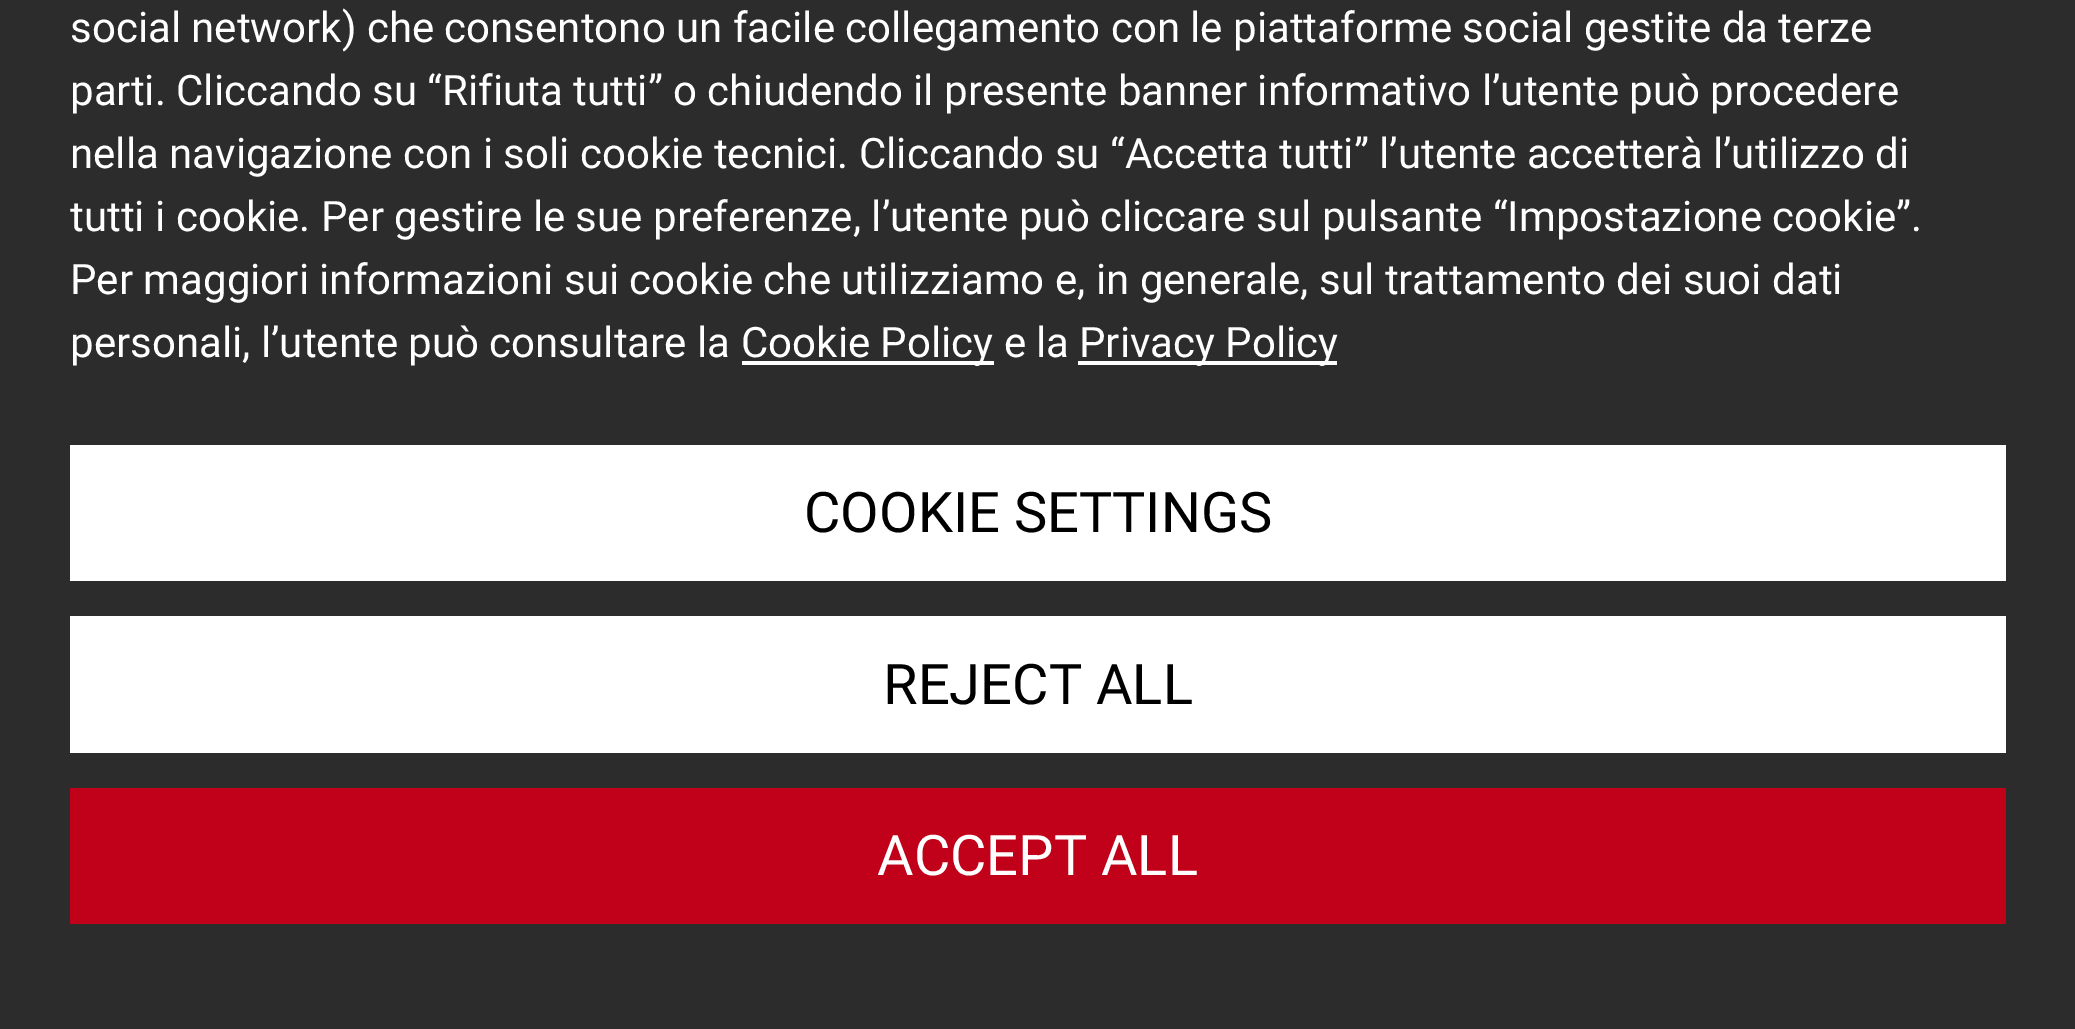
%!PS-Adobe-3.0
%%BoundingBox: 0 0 2075 1029
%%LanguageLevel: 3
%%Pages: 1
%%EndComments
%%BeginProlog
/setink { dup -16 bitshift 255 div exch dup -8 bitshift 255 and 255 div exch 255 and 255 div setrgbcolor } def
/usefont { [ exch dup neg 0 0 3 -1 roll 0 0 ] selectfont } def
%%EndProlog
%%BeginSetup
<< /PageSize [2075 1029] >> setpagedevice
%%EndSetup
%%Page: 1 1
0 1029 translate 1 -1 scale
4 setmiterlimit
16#2C2C2C setink
0 0 2075 1029 rectfill
/Roboto-Regular 42 usefont
16#FFFFFF setink
[
    [(social network\) che consentono un facile collegamento con le piattaforme social gestite da terze) 70 42]
    [(parti. Cliccando su “Rifiuta tutti” o chiudendo il presente banner informativo l’utente può procedere) 70 105]
    [(nella navigazione con i soli cookie tecnici. Cliccando su “Accetta tutti” l’utente accetterà l’utilizzo di) 70 168]
    [(tutti i cookie. Per gestire le sue preferenze, l’utente può cliccare sul pulsante “Impostazione cookie”.) 70 231]
    [(Per maggiori informazioni sui cookie che utilizziamo e, in generale, sul trattamento dei suoi dati) 70 294]
    [(personali, l’utente può consultare la) 70 357]
] { aload pop moveto show } forall
742 361 252 4 rectfill
741 357 moveto (Cookie Policy e la) show
1078 361 259 4 rectfill
1079 357 moveto (Privacy Policy) show
70 445 1936 136 rectfill
/Roboto-Regular 56 usefont
16#000000 setink
804 532 moveto (COOKIE SETTINGS) show
16#FFFFFF setink
70 616 1936 137 rectfill
16#000000 setink
883 704 moveto (REJECT ALL) show
16#C10019 setink
70 788 1936 136 rectfill
16#FFFFFF setink
877 875 moveto (ACCEPT ALL) show
showpage
%%EOF
